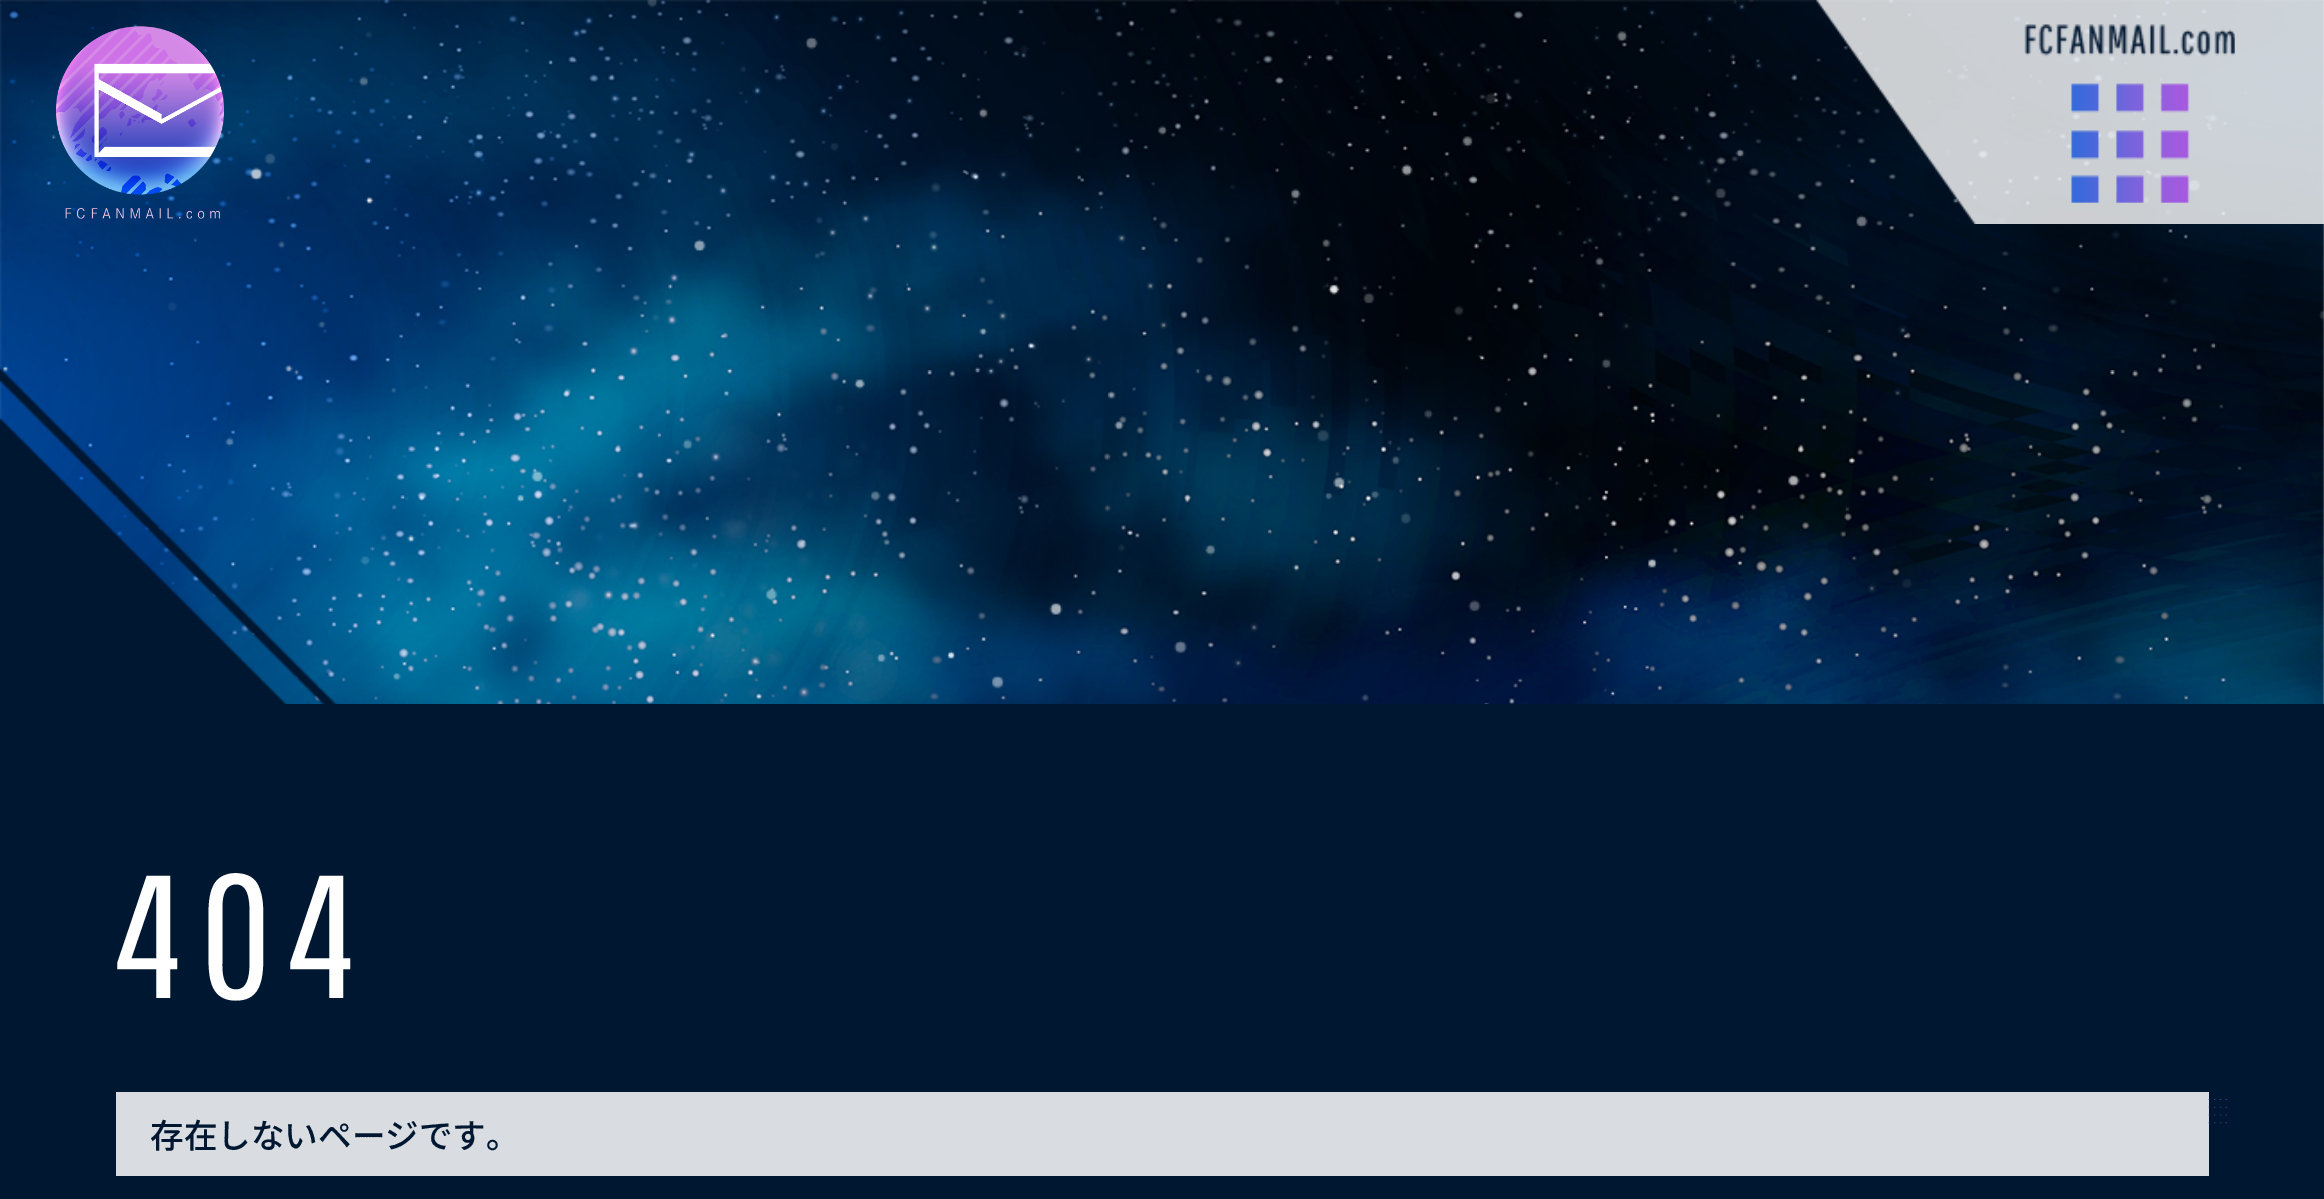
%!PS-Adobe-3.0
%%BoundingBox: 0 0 2324 1199
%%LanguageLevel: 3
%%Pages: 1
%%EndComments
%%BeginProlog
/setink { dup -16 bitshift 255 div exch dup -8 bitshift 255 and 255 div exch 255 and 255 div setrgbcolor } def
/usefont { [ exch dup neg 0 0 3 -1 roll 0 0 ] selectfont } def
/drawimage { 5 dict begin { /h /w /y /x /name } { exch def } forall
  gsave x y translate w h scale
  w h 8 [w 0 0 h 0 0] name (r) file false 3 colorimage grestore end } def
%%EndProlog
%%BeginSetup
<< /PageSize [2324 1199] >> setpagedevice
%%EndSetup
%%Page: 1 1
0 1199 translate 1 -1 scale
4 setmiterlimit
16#FFFFFF setink
0 0 2324 1199 rectfill
(img2.raw) 0 0 2324 704 drawimage
(img1.raw) 3 0 2321 704 drawimage
(img3.raw) 56 26 168 193 drawimage
(img4.raw) 1816 0 508 224 drawimage
(img5.raw) 2024 24 211 179 drawimage
16#001731 setink
0 704 2324 495 rectfill
(img6.raw) 0 367 337 337 drawimage
/PathwayGothicOne-Regular 175 usefont
16#FFFFFF setink
116 998 moveto 17.5 0 (404) ashow
16#D9DCE0 setink
116 1092 2093 84 rectfill
(img7.raw) 2208 1099 20 25 drawimage
/NotoSansJP-Medium 33.6 usefont
16#001731 setink
150 1148 moveto (存在しないページです。) show
showpage
%%EOF
